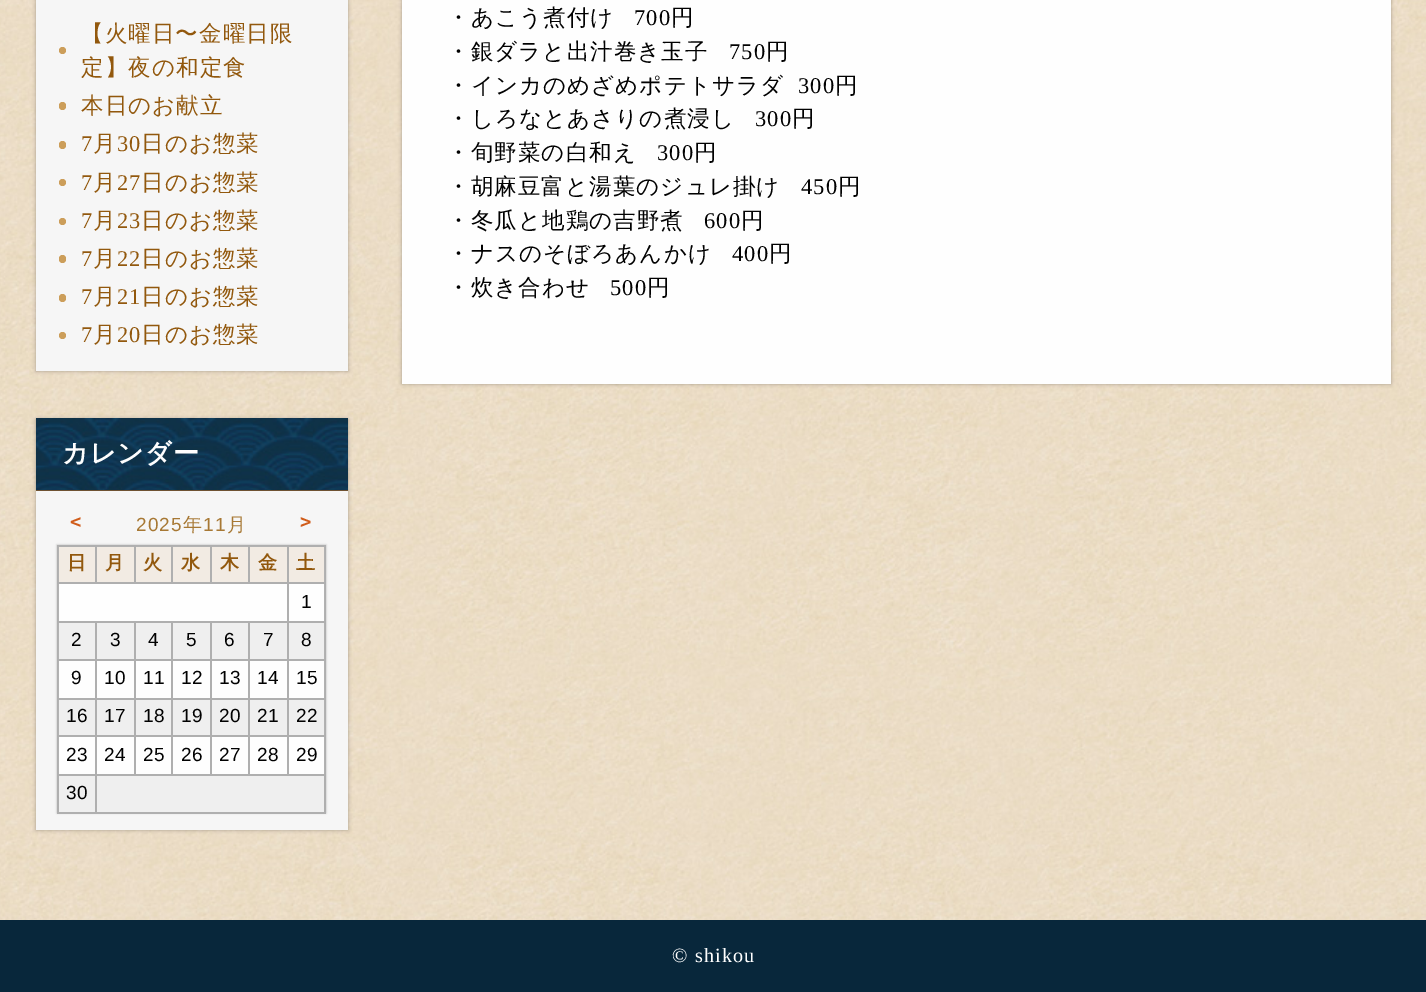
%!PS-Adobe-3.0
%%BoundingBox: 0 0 1426 992
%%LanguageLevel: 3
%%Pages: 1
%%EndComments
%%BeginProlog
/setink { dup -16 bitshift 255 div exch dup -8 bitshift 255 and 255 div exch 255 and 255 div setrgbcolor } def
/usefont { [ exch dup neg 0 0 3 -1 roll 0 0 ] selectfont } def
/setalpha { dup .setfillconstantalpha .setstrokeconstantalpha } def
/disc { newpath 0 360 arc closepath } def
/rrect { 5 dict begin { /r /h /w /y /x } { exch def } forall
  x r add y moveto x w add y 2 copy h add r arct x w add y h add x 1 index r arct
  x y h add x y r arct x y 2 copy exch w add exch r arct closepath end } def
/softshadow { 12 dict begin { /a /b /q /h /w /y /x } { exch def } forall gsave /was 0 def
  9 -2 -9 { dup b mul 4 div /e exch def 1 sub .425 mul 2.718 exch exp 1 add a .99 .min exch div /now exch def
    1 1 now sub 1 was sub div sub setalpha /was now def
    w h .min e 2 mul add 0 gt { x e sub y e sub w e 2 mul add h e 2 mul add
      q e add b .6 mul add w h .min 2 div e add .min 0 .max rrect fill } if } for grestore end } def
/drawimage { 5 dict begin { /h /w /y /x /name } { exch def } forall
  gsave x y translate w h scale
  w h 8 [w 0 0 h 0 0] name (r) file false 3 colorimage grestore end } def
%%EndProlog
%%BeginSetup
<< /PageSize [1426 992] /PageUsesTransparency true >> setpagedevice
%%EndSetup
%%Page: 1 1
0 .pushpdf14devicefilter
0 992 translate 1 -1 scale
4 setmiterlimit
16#FFFFFF setink
0 0 1426 992 rectfill
(img1.raw) 0 0 1426 920 drawimage
16#000000 setink
36 -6 312 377 0 2 0.3 softshadow
16#F6F6F6 setink
36 0 312 371 rectfill
/WenQuanYiZenHei-Medium 22.5 usefont
16#92580D setink
81 41 moveto 1.1 0 (【火曜日〜金曜日限) ashow
16#CC9E5A setink
62.5 50.5 3.5 disc fill
16#92580D setink
81 75 moveto 1.1 0 (定】夜の和定食) ashow
16#CC9E5A setink
59 102 7 8 3.5 rrect fill
16#92580D setink
81 113 moveto 1.1 0 (本日のお献立) ashow
16#CC9E5A setink
59 141 7 8 3.5 rrect fill
/LiberationSerif-Regular 22.5 usefont
16#92580D setink
81 151 moveto 1.1 0 (7) ashow
/WenQuanYiZenHei-Medium 22.5 usefont
93 151 moveto 1.1 0 (月) ashow
/LiberationSerif-Regular 22.5 usefont
117 151 moveto 1.1 0 (30) ashow
/WenQuanYiZenHei-Medium 22.5 usefont
141 151 moveto 1.1 0 (日のお惣菜) ashow
16#CC9E5A setink
62.5 182.5 3.5 disc fill
/LiberationSerif-Regular 22.5 usefont
16#92580D setink
81 190 moveto 1.1 0 (7) ashow
/WenQuanYiZenHei-Medium 22.5 usefont
93 190 moveto 1.1 0 (月) ashow
/LiberationSerif-Regular 22.5 usefont
117 190 moveto 1.1 0 (27) ashow
/WenQuanYiZenHei-Medium 22.5 usefont
141 190 moveto 1.1 0 (日のお惣菜) ashow
16#CC9E5A setink
62.5 221.5 3.5 disc fill
/LiberationSerif-Regular 22.5 usefont
16#92580D setink
81 228 moveto 1.1 0 (7) ashow
/WenQuanYiZenHei-Medium 22.5 usefont
93 228 moveto 1.1 0 (月) ashow
/LiberationSerif-Regular 22.5 usefont
117 228 moveto 1.1 0 (23) ashow
/WenQuanYiZenHei-Medium 22.5 usefont
141 228 moveto 1.1 0 (日のお惣菜) ashow
16#CC9E5A setink
59 255 7 8 3.5 rrect fill
/LiberationSerif-Regular 22.5 usefont
16#92580D setink
81 266 moveto 1.1 0 (7) ashow
/WenQuanYiZenHei-Medium 22.5 usefont
93 266 moveto 1.1 0 (月) ashow
/LiberationSerif-Regular 22.5 usefont
117 266 moveto 1.1 0 (22) ashow
/WenQuanYiZenHei-Medium 22.5 usefont
141 266 moveto 1.1 0 (日のお惣菜) ashow
16#CC9E5A setink
59 294 7 8 3.5 rrect fill
/LiberationSerif-Regular 22.5 usefont
16#92580D setink
81 304 moveto 1.1 0 (7) ashow
/WenQuanYiZenHei-Medium 22.5 usefont
93 304 moveto 1.1 0 (月) ashow
/LiberationSerif-Regular 22.5 usefont
117 304 moveto 1.1 0 (21) ashow
/WenQuanYiZenHei-Medium 22.5 usefont
141 304 moveto 1.1 0 (日のお惣菜) ashow
16#CC9E5A setink
62.5 335.5 3.5 disc fill
/LiberationSerif-Regular 22.5 usefont
16#92580D setink
81 342 moveto 1.1 0 (7) ashow
/WenQuanYiZenHei-Medium 22.5 usefont
93 342 moveto 1.1 0 (月) ashow
/LiberationSerif-Regular 22.5 usefont
117 342 moveto 1.1 0 (20) ashow
/WenQuanYiZenHei-Medium 22.5 usefont
141 342 moveto 1.1 0 (日のお惣菜) ashow
16#000000 setink
36 419 312 411 0 2 0.3 softshadow
16#F6F6F6 setink
36 491 312 339 rectfill
16#6F5232 setink
36 490 312 1 rectfill
(img2.raw) 36 418 312 72 drawimage
/WenQuanYiZenHei-Bold 26 usefont
16#FEFEFE setink
62 462 moveto 1.1 0 (カレンダー) ashow
/DejaVuSansMono-Bold 19 usefont
16#D05C1A setink
70 528 moveto 1.1 0 (<) ashow
/LiberationSans-Regular 19 usefont
16#A77834 setink
136 531 moveto 1.1 0 (2025) ashow
/WenQuanYiZenHei-Medium 19 usefont
183 531 moveto 1.1 0 (年) ashow
/LiberationSans-Regular 19 usefont
203 531 moveto 1.1 0 (11) ashow
/WenQuanYiZenHei-Medium 19 usefont
227 531 moveto 1.1 0 (月) ashow
/DejaVuSansMono-Bold 19 usefont
16#D05C1A setink
300 528 moveto 1.1 0 (>) ashow
16#000000 setink
57 545 269 268 0 1 0.3 softshadow
[
    [59 547 36 35 16#F2EBE3]
    [287 545 39 2 16#AFAFAF]
    [287 582 39 2 16#AFAFAF]
    [287 621 39 2 16#AFAFAF]
    [287 659 39 2 16#AFAFAF]
    [287 698 39 2 16#AFAFAF]
    [287 735 39 2 16#AFAFAF]
    [95 774 231 2 16#AFAFAF]
    [287 735 2 41 16#AFAFAF]
    [248 735 40 2 16#AFAFAF]
    [287 698 2 39 16#AFAFAF]
    [248 698 40 2 16#AFAFAF]
    [287 659 2 40 16#AFAFAF]
    [248 659 40 2 16#AFAFAF]
    [287 621 2 39 16#AFAFAF]
    [248 621 40 2 16#AFAFAF]
    [287 582 2 41 16#AFAFAF]
    [57 582 231 2 16#AFAFAF]
    [287 545 2 39 16#AFAFAF]
    [248 545 40 1 16#AFAFAF]
    [248 545 2 39 16#AFAFAF]
    [210 545 39 1 16#AFAFAF]
    [210 545 2 39 16#AFAFAF]
    [171 545 41 1 16#AFAFAF]
    [171 545 2 39 16#AFAFAF]
    [134 545 39 1 16#AFAFAF]
    [134 545 2 39 16#AFAFAF]
    [95 545 40 1 16#AFAFAF]
    [95 545 2 39 16#AFAFAF]
    [57 545 39 2 16#AFAFAF]
    [248 735 2 41 16#AFAFAF]
    [210 735 39 2 16#AFAFAF]
    [248 698 2 39 16#AFAFAF]
    [210 698 39 2 16#AFAFAF]
    [248 659 2 40 16#AFAFAF]
    [210 659 39 2 16#AFAFAF]
    [248 621 2 39 16#AFAFAF]
    [210 621 39 2 16#AFAFAF]
    [210 735 2 41 16#AFAFAF]
    [171 735 41 2 16#AFAFAF]
    [210 698 2 39 16#AFAFAF]
    [171 698 41 2 16#AFAFAF]
    [210 659 2 40 16#AFAFAF]
    [171 659 41 2 16#AFAFAF]
    [210 621 2 39 16#AFAFAF]
    [171 621 41 2 16#AFAFAF]
    [171 735 2 41 16#AFAFAF]
    [134 735 39 2 16#AFAFAF]
    [171 698 2 39 16#AFAFAF]
    [134 698 39 2 16#AFAFAF]
    [171 659 2 40 16#AFAFAF]
    [134 659 39 2 16#AFAFAF]
    [171 621 2 39 16#AFAFAF]
    [134 621 39 2 16#AFAFAF]
    [134 735 2 41 16#AFAFAF]
    [95 735 40 2 16#AFAFAF]
    [134 698 2 39 16#AFAFAF]
    [95 698 40 2 16#AFAFAF]
    [134 659 2 40 16#AFAFAF]
    [95 659 40 2 16#AFAFAF]
    [134 621 2 39 16#AFAFAF]
    [95 621 40 2 16#AFAFAF]
    [324 774 2 39 16#AFAFAF]
    [95 812 231 2 16#AFAFAF]
    [95 774 2 39 16#AFAFAF]
    [57 774 39 2 16#AFAFAF]
    [95 735 2 41 16#AFAFAF]
    [57 735 39 2 16#AFAFAF]
    [95 698 2 39 16#AFAFAF]
    [57 698 39 2 16#AFAFAF]
    [95 659 2 40 16#AFAFAF]
    [57 659 39 2 16#AFAFAF]
    [95 621 2 39 16#AFAFAF]
    [57 621 39 2 16#AFAFAF]
    [57 812 39 2 16#AFAFAF]
    [57 774 2 39 16#AFAFAF]
    [57 735 1 41 16#AFAFAF]
    [57 698 1 39 16#AFAFAF]
    [57 659 1 40 16#AFAFAF]
    [57 621 1 39 16#AFAFAF]
    [57 582 1 41 16#AFAFAF]
    [57 545 1 39 16#AFAFAF]
] { aload pop setink rectfill } forall
/WenQuanYiZenHei-Bold 19 usefont
16#92580D setink
67 569 moveto 1.1 0 (日) ashow
16#F2EBE3 setink
97 547 37 35 rectfill
16#92580D setink
105 569 moveto 1.1 0 (月) ashow
16#F2EBE3 setink
136 547 35 35 rectfill
16#92580D setink
143 569 moveto 1.1 0 (火) ashow
16#F2EBE3 setink
173 547 37 35 rectfill
16#92580D setink
181 569 moveto 1.1 0 (水) ashow
16#F2EBE3 setink
212 547 36 35 rectfill
16#92580D setink
220 569 moveto 1.1 0 (木) ashow
16#F2EBE3 setink
250 547 37 35 rectfill
16#92580D setink
258 569 moveto 1.1 0 (金) ashow
[
    [289 547 35 35 16#F2EBE3]
    [325 735 1 41 16#AFAFAF]
    [325 698 1 39 16#AFAFAF]
    [325 659 1 40 16#AFAFAF]
    [325 621 1 39 16#AFAFAF]
    [325 582 1 41 16#AFAFAF]
    [325 545 1 39 16#AFAFAF]
] { aload pop setink rectfill } forall
16#92580D setink
296 569 moveto 1.1 0 (土) ashow
16#FEFEFE setink
59 584 228 37 rectfill
289 584 35 37 rectfill
/LiberationSans-Regular 19 usefont
16#010101 setink
301 608 moveto (1) show
16#EFEFEF setink
59 623 36 36 rectfill
16#010101 setink
71 646 moveto (2) show
16#EFEFEF setink
97 623 37 36 rectfill
16#010101 setink
110 646 moveto (3) show
16#EFEFEF setink
136 623 35 36 rectfill
16#010101 setink
148 646 moveto (4) show
16#EFEFEF setink
173 623 37 36 rectfill
16#010101 setink
186 646 moveto (5) show
16#EFEFEF setink
212 623 36 36 rectfill
16#010101 setink
224 646 moveto (6) show
16#EFEFEF setink
250 623 37 36 rectfill
16#010101 setink
263 646 moveto (7) show
16#EFEFEF setink
289 623 35 36 rectfill
16#010101 setink
301 646 moveto (8) show
16#FEFEFE setink
59 661 36 37 rectfill
16#010101 setink
71 684 moveto (9) show
16#FEFEFE setink
97 661 37 37 rectfill
16#010101 setink
104 684 moveto (10) show
16#FEFEFE setink
136 661 35 37 rectfill
16#010101 setink
143 684 moveto (11) show
16#FEFEFE setink
173 661 37 37 rectfill
16#010101 setink
181 684 moveto (12) show
16#FEFEFE setink
212 661 36 37 rectfill
16#010101 setink
219 684 moveto (13) show
16#FEFEFE setink
250 661 37 37 rectfill
16#010101 setink
257 684 moveto (14) show
16#FEFEFE setink
289 661 35 37 rectfill
16#010101 setink
296 684 moveto (15) show
16#EFEFEF setink
59 700 36 35 rectfill
16#010101 setink
66 722 moveto (16) show
16#EFEFEF setink
97 700 37 35 rectfill
16#010101 setink
104 722 moveto (17) show
16#EFEFEF setink
136 700 35 35 rectfill
16#010101 setink
143 722 moveto (18) show
16#EFEFEF setink
173 700 37 35 rectfill
16#010101 setink
181 722 moveto (19) show
16#EFEFEF setink
212 700 36 35 rectfill
16#010101 setink
219 722 moveto (20) show
16#EFEFEF setink
250 700 37 35 rectfill
16#010101 setink
257 722 moveto (21) show
16#EFEFEF setink
289 700 35 35 rectfill
16#010101 setink
296 722 moveto (22) show
16#FEFEFE setink
59 737 36 37 rectfill
16#010101 setink
66 761 moveto (23) show
16#FEFEFE setink
97 737 37 37 rectfill
16#010101 setink
104 761 moveto (24) show
16#FEFEFE setink
136 737 35 37 rectfill
16#010101 setink
143 761 moveto (25) show
16#FEFEFE setink
173 737 37 37 rectfill
16#010101 setink
181 761 moveto (26) show
16#FEFEFE setink
212 737 36 37 rectfill
16#010101 setink
219 761 moveto (27) show
16#FEFEFE setink
250 737 37 37 rectfill
16#010101 setink
257 761 moveto (28) show
16#FEFEFE setink
289 737 35 37 rectfill
16#010101 setink
296 761 moveto (29) show
16#EFEFEF setink
59 776 36 36 rectfill
16#010101 setink
66 799 moveto (30) show
16#EFEFEF setink
97 776 227 36 rectfill
16#000000 setink
402 -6 989 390 0 2 0.3 softshadow
16#FEFEFE setink
402 0 989 384 rectfill
/WenQuanYiZenHei-Medium 22.5 usefont
16#010101 setink
447 25 moveto 1.1 0 (・あこう煮付け) ashow
/LiberationSerif-Regular 22.5 usefont
634 25 moveto 1.1 0 (700) ashow
/WenQuanYiZenHei-Medium 22.5 usefont
671 25 moveto 1.1 0 (円) ashow
447 59 moveto 1.1 0 (・銀ダラと出汁巻き玉子) ashow
/LiberationSerif-Regular 22.5 usefont
729 59 moveto 1.1 0 (750) ashow
/WenQuanYiZenHei-Medium 22.5 usefont
766 59 moveto 1.1 0 (円) ashow
447 93 moveto 1.1 0 (・インカのめざめポテトサラダ) ashow
/LiberationSerif-Regular 22.5 usefont
798 93 moveto 1.1 0 (300) ashow
/WenQuanYiZenHei-Medium 22.5 usefont
835 93 moveto 1.1 0 (円) ashow
447 126 moveto 1.1 0 (・しろなとあさりの煮浸し) ashow
/LiberationSerif-Regular 22.5 usefont
755 126 moveto 1.1 0 (300) ashow
/WenQuanYiZenHei-Medium 22.5 usefont
792 126 moveto 1.1 0 (円) ashow
447 160 moveto 1.1 0 (・旬野菜の白和え) ashow
/LiberationSerif-Regular 22.5 usefont
657 160 moveto 1.1 0 (300) ashow
/WenQuanYiZenHei-Medium 22.5 usefont
694 160 moveto 1.1 0 (円) ashow
447 194 moveto 1.1 0 (・胡麻豆富と湯葉のジュレ掛け) ashow
/LiberationSerif-Regular 22.5 usefont
801 194 moveto 1.1 0 (450) ashow
/WenQuanYiZenHei-Medium 22.5 usefont
838 194 moveto 1.1 0 (円) ashow
447 228 moveto 1.1 0 (・冬瓜と地鶏の吉野煮) ashow
/LiberationSerif-Regular 22.5 usefont
704 228 moveto 1.1 0 (600) ashow
/WenQuanYiZenHei-Medium 22.5 usefont
741 228 moveto 1.1 0 (円) ashow
447 261 moveto 1.1 0 (・ナスのそぼろあんかけ) ashow
/LiberationSerif-Regular 22.5 usefont
732 261 moveto 1.1 0 (400) ashow
/WenQuanYiZenHei-Medium 22.5 usefont
769 261 moveto 1.1 0 (円) ashow
447 295 moveto 1.1 0 (・炊き合わせ) ashow
/LiberationSerif-Regular 22.5 usefont
610 295 moveto 1.1 0 (500) ashow
/WenQuanYiZenHei-Medium 22.5 usefont
647 295 moveto 1.1 0 (円) ashow
16#08273B setink
0 920 1426 72 rectfill
/LiberationSerif-Regular 20.25 usefont
16#FEFEFE setink
672 962 moveto 1.1 0 (© shikou) ashow
.poppdf14devicefilter showpage
%%EOF
